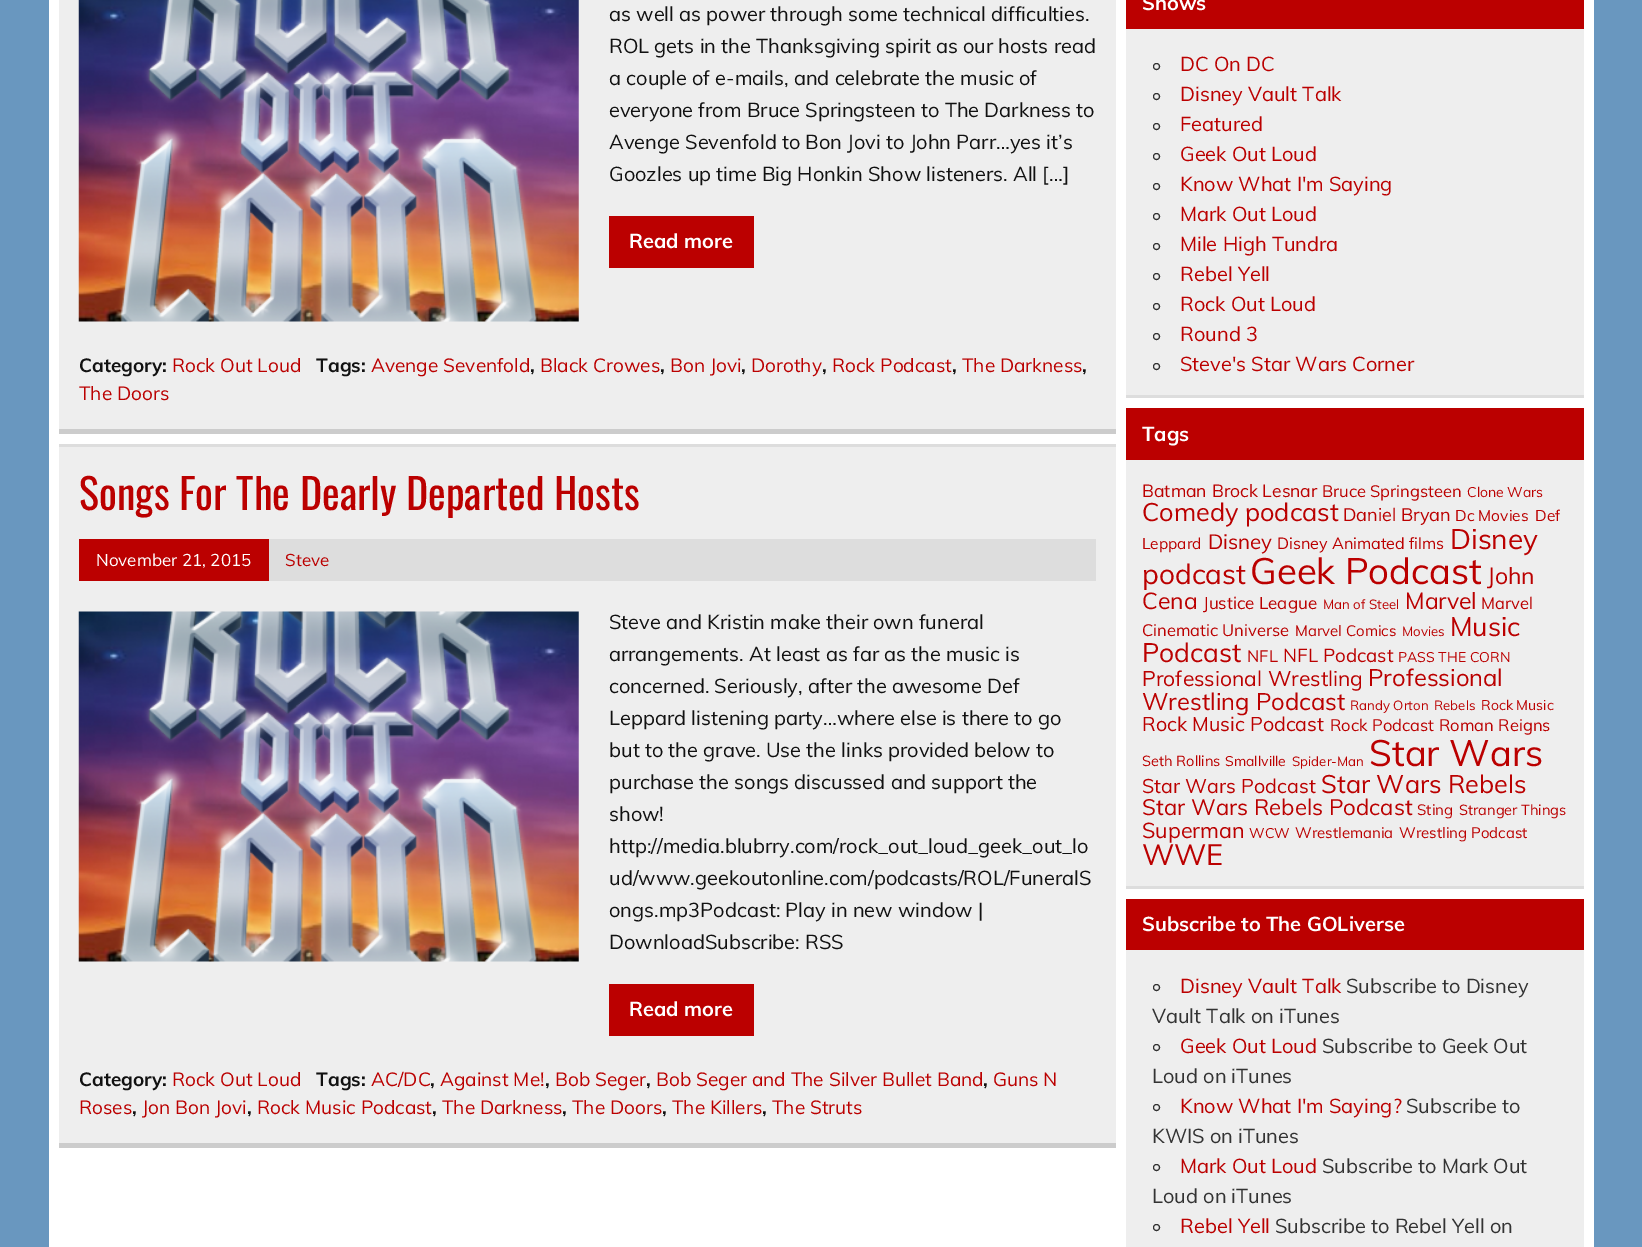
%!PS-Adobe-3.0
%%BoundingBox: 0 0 1642 1247
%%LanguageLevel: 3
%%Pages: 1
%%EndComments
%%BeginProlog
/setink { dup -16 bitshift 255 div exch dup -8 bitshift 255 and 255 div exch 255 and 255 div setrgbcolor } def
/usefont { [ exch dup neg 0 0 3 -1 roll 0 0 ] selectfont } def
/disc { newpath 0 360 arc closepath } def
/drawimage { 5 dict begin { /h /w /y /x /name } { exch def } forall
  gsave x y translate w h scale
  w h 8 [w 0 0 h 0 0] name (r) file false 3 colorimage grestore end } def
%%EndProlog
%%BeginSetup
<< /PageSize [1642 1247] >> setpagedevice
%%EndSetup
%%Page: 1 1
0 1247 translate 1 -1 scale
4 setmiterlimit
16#6997BF setink
0 0 1642 1247 rectfill
[
    [49 0 1545 1247 16#FFFFFF]
    [59 0 1057 429 16#EEEEEE]
    [59 429 1057 5 16#CCCCCC]
] { aload pop setink rectfill } forall
(img1.raw) 78 0 501 322 drawimage
/Muli-Regular 20 usefont
16#111111 setink
[
    [(as well as power through some technical difficulties.) 609 21]
    [(ROL gets in the Thanksgiving spirit as our hosts read) 609 53]
    [(a couple of e-mails, and celebrate the music of) 609 85]
    [(everyone from Bruce Springsteen to The Darkness to) 609 117]
    [(Avenge Sevenfold to Bon Jovi to John Parr…yes it’s) 609 149]
    [(Goozles up time Big Honkin Show listeners. All […]) 609 181]
] { aload pop moveto show } forall
16#BB0000 setink
609 216 145 52 rectfill
/Muli-Bold 20 usefont
16#FFFFFF setink
629 248 moveto (Read more) show
/Muli-Bold 19 usefont
16#111111 setink
79 372 moveto (Category:) show
/Muli-Regular 19 usefont
16#BB0000 setink
172 372 moveto (Rock Out Loud) show
/Muli-Bold 19 usefont
16#111111 setink
316 372 moveto (Tags:) show
/Muli-Regular 19 usefont
16#BB0000 setink
371 372 moveto (Avenge Sevenfold) show
/Muli-Bold 19 usefont
16#111111 setink
530 372 moveto (,) show
/Muli-Regular 19 usefont
16#BB0000 setink
540 372 moveto (Black Crowes) show
/Muli-Bold 19 usefont
16#111111 setink
660 372 moveto (,) show
/Muli-Regular 19 usefont
16#BB0000 setink
670 372 moveto (Bon Jovi) show
/Muli-Bold 19 usefont
16#111111 setink
741 372 moveto (,) show
/Muli-Regular 19 usefont
16#BB0000 setink
751 372 moveto (Dorothy) show
/Muli-Bold 19 usefont
16#111111 setink
822 372 moveto (,) show
/Muli-Regular 19 usefont
16#BB0000 setink
832 372 moveto (Rock Podcast) show
/Muli-Bold 19 usefont
16#111111 setink
952 372 moveto (,) show
/Muli-Regular 19 usefont
16#BB0000 setink
962 372 moveto (The Darkness) show
/Muli-Bold 19 usefont
16#111111 setink
1082 372 moveto (,) show
/Muli-Regular 19 usefont
16#BB0000 setink
79 400 moveto (The Doors) show
[
    [59 447 1057 696 16#EEEEEE]
    [59 444 1057 3 16#DDDDDD]
    [59 1143 1057 5 16#CCCCCC]
] { aload pop setink rectfill } forall
/Oswald-Regular 42 usefont
16#BB0000 setink
79 510 moveto (Songs For The Dearly Departed Hosts) show
16#DDDDDD setink
269 539 827 42 rectfill
16#BB0000 setink
79 539 190 42 rectfill
/Muli-Regular 17 usefont
16#FFFFFF setink
96 566 moveto (November 21, 2015) show
16#BB0000 setink
285 566 moveto (Steve) show
(img2.raw) 78 611 501 351 drawimage
/Muli-Regular 20 usefont
16#111111 setink
[
    [(Steve and Kristin make their own funeral) 609 629]
    [(arrangements. At least as far as the music is) 609 661]
    [(concerned. Seriously, after the awesome Def) 609 693]
    [(Leppard listening party…where else is there to go) 609 725]
    [(but to the grave. Use the links provided below to) 609 757]
    [(purchase the songs discussed and support the) 609 789]
    [(show!) 609 821]
    [(http://media.blubrry.com/rock_out_loud_geek_out_lo) 609 853]
    [(ud/www.geekoutonline.com/podcasts/ROL/FuneralS) 609 885]
    [(ongs.mp3Podcast: Play in new window |) 609 917]
    [(DownloadSubscribe: RSS) 609 949]
] { aload pop moveto show } forall
16#BB0000 setink
609 984 145 52 rectfill
/Muli-Bold 20 usefont
16#FFFFFF setink
629 1016 moveto (Read more) show
/Muli-Bold 19 usefont
16#111111 setink
79 1086 moveto (Category:) show
/Muli-Regular 19 usefont
16#BB0000 setink
172 1086 moveto (Rock Out Loud) show
/Muli-Bold 19 usefont
16#111111 setink
316 1086 moveto (Tags:) show
/Muli-Regular 19 usefont
16#BB0000 setink
371 1086 moveto (AC/DC) show
/Muli-Bold 19 usefont
16#111111 setink
430 1086 moveto (,) show
/Muli-Regular 19 usefont
16#BB0000 setink
440 1086 moveto (Against Me!) show
/Muli-Bold 19 usefont
16#111111 setink
545 1086 moveto (,) show
/Muli-Regular 19 usefont
16#BB0000 setink
555 1086 moveto (Bob Seger) show
/Muli-Bold 19 usefont
16#111111 setink
646 1086 moveto (,) show
/Muli-Regular 19 usefont
16#BB0000 setink
656 1086 moveto (Bob Seger and The Silver Bullet Band) show
/Muli-Bold 19 usefont
16#111111 setink
983 1086 moveto (,) show
/Muli-Regular 19 usefont
16#BB0000 setink
993 1086 moveto (Guns N) show
79 1114 moveto (Roses) show
/Muli-Bold 19 usefont
16#111111 setink
132 1114 moveto (,) show
/Muli-Regular 19 usefont
16#BB0000 setink
142 1114 moveto (Jon Bon Jovi) show
/Muli-Bold 19 usefont
16#111111 setink
247 1114 moveto (,) show
/Muli-Regular 19 usefont
16#BB0000 setink
257 1114 moveto (Rock Music Podcast) show
/Muli-Bold 19 usefont
16#111111 setink
432 1114 moveto (,) show
/Muli-Regular 19 usefont
16#BB0000 setink
442 1114 moveto (The Darkness) show
/Muli-Bold 19 usefont
16#111111 setink
562 1114 moveto (,) show
/Muli-Regular 19 usefont
16#BB0000 setink
572 1114 moveto (The Doors) show
/Muli-Bold 19 usefont
16#111111 setink
662 1114 moveto (,) show
/Muli-Regular 19 usefont
16#BB0000 setink
672 1114 moveto (The Killers) show
/Muli-Bold 19 usefont
16#111111 setink
762 1114 moveto (,) show
/Muli-Regular 19 usefont
16#BB0000 setink
772 1114 moveto (The Struts) show
[
    [1126 29 458 366 16#EEEEEE]
    [1126 395 458 3 16#DDDDDD]
    [1126 0 458 29 16#BB0000]
] { aload pop setink rectfill } forall
/Muli-Bold 20 usefont
16#FFFFFF setink
1142 10 moveto (Shows) show
16#333333 setink
1156.5 66.5 3 disc stroke
/Muli-Regular 20 usefont
16#BB0000 setink
1180 71 moveto (DC On DC) show
16#333333 setink
1156.5 96.5 3 disc stroke
16#BB0000 setink
1180 101 moveto (Disney Vault Talk) show
16#333333 setink
1156.5 126.5 3 disc stroke
16#BB0000 setink
1180 131 moveto (Featured) show
16#333333 setink
1156.5 156.5 3 disc stroke
16#BB0000 setink
1180 161 moveto (Geek Out Loud) show
16#333333 setink
1156.5 186.5 3 disc stroke
16#BB0000 setink
1180 191 moveto (Know What I'm Saying) show
16#333333 setink
1156.5 216.5 3 disc stroke
16#BB0000 setink
1180 221 moveto (Mark Out Loud) show
16#333333 setink
1156.5 246.5 3 disc stroke
16#BB0000 setink
1180 251 moveto (Mile High Tundra) show
16#333333 setink
1156.5 276.5 3 disc stroke
16#BB0000 setink
1180 281 moveto (Rebel Yell) show
16#333333 setink
1156.5 306.5 3 disc stroke
16#BB0000 setink
1180 311 moveto (Rock Out Loud) show
16#333333 setink
1156.5 336.5 3 disc stroke
16#BB0000 setink
1180 341 moveto (Round 3) show
16#333333 setink
1156.5 366.5 3 disc stroke
16#BB0000 setink
1180 371 moveto (Steve's Star Wars Corner) show
[
    [1126 460 458 426 16#EEEEEE]
    [1126 886 458 3 16#DDDDDD]
    [1126 408 458 52 16#BB0000]
] { aload pop setink rectfill } forall
/Muli-Bold 20 usefont
16#FFFFFF setink
1142 441 moveto (Tags) show
/Muli-Regular 17.5 usefont
16#BB0000 setink
1142 497 moveto (Batman) show
1212 497 moveto (Brock Lesnar) show
/Muli-Regular 16.5 usefont
1322 497 moveto (Bruce Springsteen) show
/Muli-Regular 14 usefont
1467 497 moveto (Clone Wars) show
/Muli-Regular 25.25 usefont
1142 521 moveto (Comedy podcast) show
/Muli-Regular 18 usefont
1343 521 moveto (Daniel Bryan) show
/Muli-Regular 15.5 usefont
[
    [(Dc Movies) 1455 521]
    [(Def) 1535 521]
    [(Leppard) 1142 549]
] { aload pop moveto show } forall
/Muli-Regular 20.5 usefont
1208 549 moveto (Disney) show
/Muli-Regular 16.1 usefont
1277 549 moveto (Disney Animated films) show
/Muli-Regular 28 usefont
1450 549 moveto (Disney) show
1142 584 moveto (podcast) show
/Muli-Regular 36.5 usefont
1250 584 moveto (Geek Podcast) show
/Muli-Regular 23 usefont
1487 584 moveto (John) show
1142 609 moveto (Cena) show
/Muli-Regular 17 usefont
1203 609 moveto (Justice League) show
/Muli-Regular 13.25 usefont
1323 609 moveto (Man of Steel) show
/Muli-Regular 23 usefont
1405 609 moveto (Marvel) show
/Muli-Regular 16.5 usefont
1481 609 moveto (Marvel) show
1142 636 moveto (Cinematic Universe) show
/Muli-Regular 15 usefont
1295 636 moveto (Marvel Comics) show
/Muli-Regular 13.25 usefont
1402 636 moveto (Movies) show
/Muli-Regular 26.5 usefont
1450 636 moveto (Music) show
1142 662 moveto (Podcast) show
/Muli-Regular 16.5 usefont
1247 662 moveto (NFL) show
/Muli-Regular 18.75 usefont
1283 662 moveto (NFL Podcast) show
/Muli-Regular 14 usefont
1398 662 moveto (PASS THE CORN) show
/Muli-Regular 21.1 usefont
1142 686 moveto (Professional Wrestling) show
/Muli-Regular 23.75 usefont
1368 686 moveto (Professional) show
1142 710 moveto (Wrestling Podcast) show
/Muli-Regular 13.25 usefont
1350 710 moveto (Randy Orton) show
1434 710 moveto (Rebels) show
/Muli-Regular 14 usefont
1481 710 moveto (Rock Music) show
/Muli-Regular 19.75 usefont
1142 731 moveto (Rock Music Podcast) show
/Muli-Regular 16.5 usefont
1330 731 moveto (Rock Podcast) show
1439 731 moveto (Roman Reigns) show
/Muli-Regular 14.5 usefont
1142 766 moveto (Seth Rollins) show
/Muli-Regular 14 usefont
1225 766 moveto (Smallville) show
/Muli-Regular 13.25 usefont
1292 766 moveto (Spider-Man) show
/Muli-Regular 36.5 usefont
1369 766 moveto (Star Wars) show
/Muli-Regular 19.75 usefont
1142 793 moveto (Star Wars Podcast) show
/Muli-Regular 25.25 usefont
1321 793 moveto (Star Wars Rebels) show
/Muli-Regular 22.25 usefont
1142 815 moveto (Star Wars Rebels Podcast) show
/Muli-Regular 15 usefont
1417 815 moveto (Sting) show
/Muli-Regular 14.5 usefont
1459 815 moveto (Stranger Things) show
/Muli-Regular 21.5 usefont
1142 838 moveto (Superman) show
/Muli-Regular 14 usefont
1249 838 moveto (WCW) show
/Muli-Regular 15 usefont
1295 838 moveto (Wrestlemania) show
1399 838 moveto (Wrestling Podcast) show
/Muli-Regular 29 usefont
1142 865 moveto (WWE) show
16#EEEEEE setink
1126 950 458 297 rectfill
16#BB0000 setink
1126 899 458 51 rectfill
/Muli-Bold 20 usefont
16#FFFFFF setink
1142 931 moveto (Subscribe to The GOLiverse) show
16#333333 setink
1156.5 987.5 3 disc stroke
/Muli-Regular 20 usefont
16#BB0000 setink
1180 993 moveto (Disney Vault Talk) show
16#333333 setink
1346 993 moveto (Subscribe to Disney) show
1152 1023 moveto (Vault Talk on iTunes) show
1156.5 1047.5 3 disc stroke
16#BB0000 setink
1180 1053 moveto (Geek Out Loud) show
16#333333 setink
1322 1053 moveto (Subscribe to Geek Out) show
1152 1083 moveto (Loud on iTunes) show
1156.5 1107.5 3 disc stroke
16#BB0000 setink
1180 1113 moveto (Know What I'm Saying?) show
16#333333 setink
1406 1113 moveto (Subscribe to) show
1152 1143 moveto (KWIS on iTunes) show
1156.5 1167.5 3 disc stroke
16#BB0000 setink
1180 1173 moveto (Mark Out Loud) show
16#333333 setink
1322 1173 moveto (Subscribe to Mark Out) show
1152 1203 moveto (Loud on iTunes) show
1156.5 1227.5 3 disc stroke
16#BB0000 setink
1180 1233 moveto (Rebel Yell) show
16#333333 setink
1275 1233 moveto (Subscribe to Rebel Yell on) show
showpage
%%EOF
